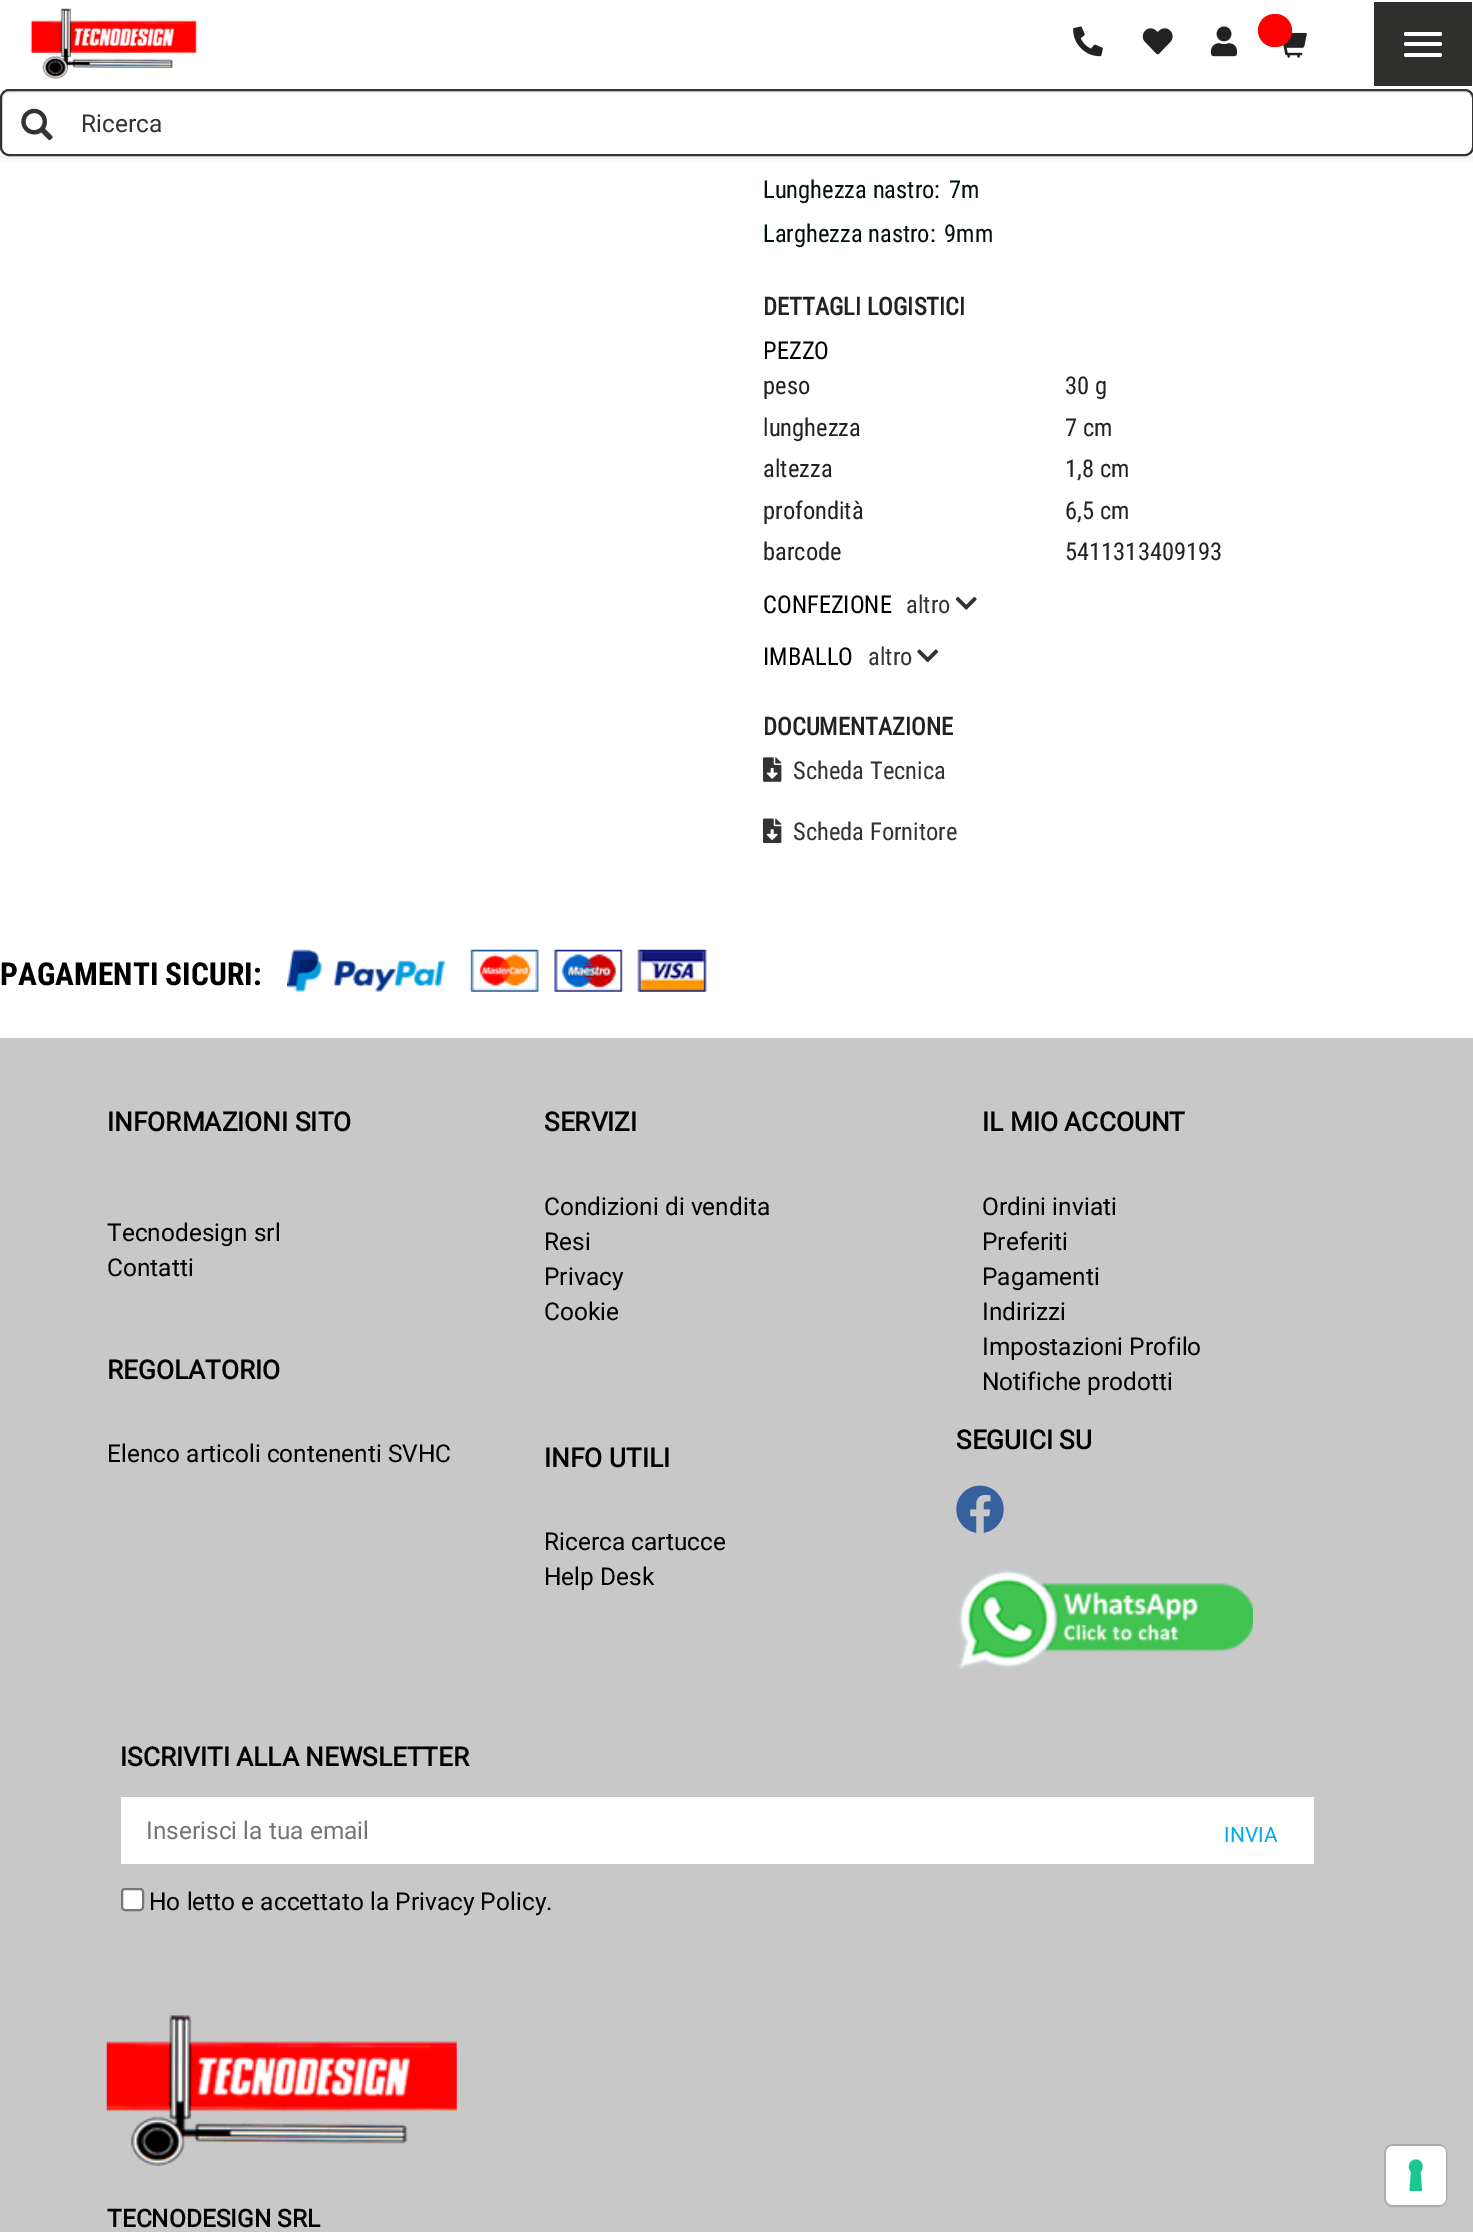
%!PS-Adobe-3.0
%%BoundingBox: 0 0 1473 2232
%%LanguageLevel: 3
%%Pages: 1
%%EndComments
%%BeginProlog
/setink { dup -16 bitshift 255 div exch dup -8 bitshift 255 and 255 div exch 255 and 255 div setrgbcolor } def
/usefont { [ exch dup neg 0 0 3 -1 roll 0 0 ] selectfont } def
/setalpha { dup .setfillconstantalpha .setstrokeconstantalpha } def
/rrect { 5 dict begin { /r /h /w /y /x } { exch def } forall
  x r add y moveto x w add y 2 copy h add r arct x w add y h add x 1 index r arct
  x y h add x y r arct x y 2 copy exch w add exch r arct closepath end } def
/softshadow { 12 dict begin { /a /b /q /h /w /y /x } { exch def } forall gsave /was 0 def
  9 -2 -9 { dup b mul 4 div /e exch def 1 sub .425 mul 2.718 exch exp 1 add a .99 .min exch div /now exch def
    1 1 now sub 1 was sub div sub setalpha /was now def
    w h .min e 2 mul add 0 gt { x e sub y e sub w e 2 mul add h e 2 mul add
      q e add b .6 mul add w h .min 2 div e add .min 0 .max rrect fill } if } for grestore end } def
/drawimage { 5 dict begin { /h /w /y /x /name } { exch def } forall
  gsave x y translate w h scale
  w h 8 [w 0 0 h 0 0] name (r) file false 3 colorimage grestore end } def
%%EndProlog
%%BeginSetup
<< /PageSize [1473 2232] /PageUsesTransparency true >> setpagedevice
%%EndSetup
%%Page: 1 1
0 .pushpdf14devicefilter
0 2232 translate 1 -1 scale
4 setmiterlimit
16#FFFFFF setink
0 0 1473 2232 rectfill
16#999999 setink
0 -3 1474 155 0 5 1 softshadow
16#FFFFFF setink
0 0 1473 156 rectfill
(img1.raw) 30 8 167 71 drawimage
(img2.raw) 1073 26 30 31 drawimage
(img3.raw) 1142 28 31 27 drawimage
(img4.raw) 1211 26 27 31 drawimage
(img5.raw) 1283 32 24 26 drawimage
16#FF0000 setink
1258 14 34 33 16.5 rrect fill
16#2F2F2D setink
1374 2 98 84 rectfill
16#FFFFFF setink
1404 32 38 4 2 rrect fill
1404 42 38 4 2 rrect fill
1404 53 38 4 2 rrect fill
16#ECECEC setink
9 93 moveto 1465 93 lineto 1469 93 1472 96 1472 100 curveto 1472 98 lineto 1472 94 1469 91 1465 91 curveto 9 91 lineto 5 91 2 94 2 98 curveto 2 100 lineto 2 96 5 93 9 93 curveto closepath fill
16#333333 setink
2 setlinewidth
1 90 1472 65 8 rrect stroke
(img6.raw) 21 108 32 33 drawimage
/Roboto-Regular 24.5 usefont
81 132 moveto (Ricerca) show
/RobotoCondensed-Regular 24.5 usefont
16#00110C setink
[
    [(Lunghezza nastro:) 763 198]
    [(7m) 949 198]
    [(Larghezza nastro:) 763 242]
    [(9mm) 944 242]
] { aload pop moveto show } forall
/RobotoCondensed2-Bold 24.5 usefont
16#222222 setink
763 315 moveto (DETTAGLI LOGISTICI) show
/RobotoCondensed-Regular 24.5 usefont
16#000000 setink
763 359 moveto (PEZZO) show
16#222222 setink
[
    [(peso) 763 394]
    [(30 g) 1065 394]
    [(lunghezza) 763 436]
    [(7 cm) 1065 436]
    [(altezza) 763 477]
    [(1,8 cm) 1065 477]
    [(profondità) 763 519]
    [(6,5 cm) 1065 519]
    [(barcode) 763 560]
    [(5411313409193) 1065 560]
] { aload pop moveto show } forall
16#000000 setink
763 613 moveto (CONFEZIONE) show
16#333333 setink
906 613 moveto (altro) show
(img7.raw) 955 597 22 13 drawimage
16#000000 setink
763 665 moveto (IMBALLO) show
16#333333 setink
868 665 moveto (altro) show
(img8.raw) 917 649 22 14 drawimage
/RobotoCondensed2-Bold 24.5 usefont
16#222222 setink
763 735 moveto (DOCUMENTAZIONE) show
(img9.raw) 763 757 19 25 drawimage
/RobotoCondensed-Regular 24.5 usefont
16#333333 setink
793 779 moveto (Scheda Tecnica) show
(img10.raw) 763 818 19 26 drawimage
793 840 moveto (Scheda Fornitore) show
/RobotoCondensed-Bold 31.5 usefont
16#000000 setink
0 985 moveto (PAGAMENTI SICURI:) show
(img11.raw) 287 949 158 43 drawimage
(img12.raw) 470 949 237 43 drawimage
16#C8C8C8 setink
0 1038 1473 1194 rectfill
/Roboto-Bold 26.25 usefont
16#000000 setink
107 1131 moveto (INFORMAZIONI SITO) show
/Roboto-Regular 24.5 usefont
107 1241 moveto (Tecnodesign srl) show
107 1276 moveto (Contatti) show
/Roboto-Bold 26.25 usefont
107 1379 moveto (REGOLATORIO) show
/Roboto-Regular 24.5 usefont
107 1462 moveto (Elenco articoli contenenti SVHC) show
/Roboto-Bold 26.25 usefont
544 1131 moveto (SERVIZI) show
/Roboto-Regular 24.5 usefont
[
    [(Condizioni di vendita) 544 1215]
    [(Resi) 544 1250]
    [(Privacy) 544 1285]
    [(Cookie) 544 1320]
] { aload pop moveto show } forall
/Roboto-Bold 26.25 usefont
982 1131 moveto (IL MIO ACCOUNT) show
/Roboto-Regular 24.5 usefont
[
    [(Ordini inviati) 982 1215]
    [(Preferiti) 982 1250]
    [(Pagamenti) 982 1285]
    [(Indirizzi) 982 1320]
    [(Impostazioni Profilo) 982 1355]
    [(Notifiche prodotti) 982 1390]
] { aload pop moveto show } forall
/Roboto-Bold 26.25 usefont
956 1449 moveto (SEGUICI SU) show
(img13.raw) 956 1485 48 48 drawimage
(img14.raw) 957 1569 296 100 drawimage
120 1766 moveto (ISCRIVITI ALLA NEWSLETTER) show
16#FFFFFF setink
121 1797 1193 67 rectfill
/Roboto-Regular 24.5 usefont
16#757575 setink
146 1839 moveto (Inserisci la tua email) show
/Roboto-Regular 21 usefont
16#00ABEA setink
1224 1842 moveto (INVIA) show
16#FFFFFF setink
122 1889 21 21 3 rrect gsave fill grestore
16#767676 setink
stroke
/Roboto-Regular 24.5 usefont
16#000000 setink
149 1910 moveto (Ho letto e accettato la Privacy Policy.) show
/Roboto-Bold 26.25 usefont
544 1467 moveto (INFO UTILI) show
/Roboto-Regular 24.5 usefont
544 1550 moveto (Ricerca cartucce) show
544 1585 moveto (Help Desk) show
(img15.raw) 106 2015 351 151 drawimage
/Roboto-Bold 24.5 usefont
107 2227 moveto (TECNODESIGN SRL) show
16#AAAAAA setink
1385 2145 61 61 8 rrect stroke
16#FFFFFF setink
1386 2146 60 59 7 rrect fill
16#1CC691 setink
1416 2159.5 moveto 1422 2159.5 1425 2167.5 1420.5 2172 curveto 1422 2191 lineto 1409.5 2191 lineto 1411 2172 lineto 1406.5 2167.5 1409.5 2159.5 1416 2159.5 curveto closepath eofill
.poppdf14devicefilter showpage
%%EOF
